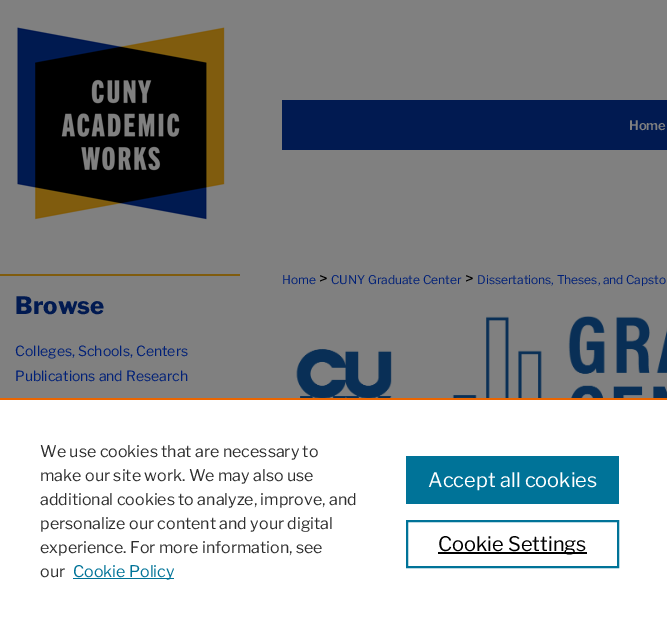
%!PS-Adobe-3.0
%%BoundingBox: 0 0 667 624
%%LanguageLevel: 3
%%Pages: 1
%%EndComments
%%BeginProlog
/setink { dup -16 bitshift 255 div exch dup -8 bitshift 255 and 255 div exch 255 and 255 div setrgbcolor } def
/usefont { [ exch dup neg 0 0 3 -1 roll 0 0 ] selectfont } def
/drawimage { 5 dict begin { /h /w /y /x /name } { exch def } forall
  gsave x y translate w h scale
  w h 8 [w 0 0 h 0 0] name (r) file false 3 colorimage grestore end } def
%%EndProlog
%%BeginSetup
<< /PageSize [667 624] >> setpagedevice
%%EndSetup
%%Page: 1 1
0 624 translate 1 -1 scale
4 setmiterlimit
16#808080 setink
0 0 667 624 rectfill
(img1.raw) 17 27 208 193 drawimage
16#011A51 setink
282 100 385 50 rectfill
/LibreFranklin-SemiBold 13 usefont
16#808080 setink
629 130 moveto (Home) show
/LibreFranklin-Regular 12 usefont
16#002078 setink
282 284 moveto (Home) show
/LibreFranklin-Regular 16 usefont
16#000000 setink
319 284 moveto (>) show
/LibreFranklin-Regular 12 usefont
16#002078 setink
331 284 moveto (CUNY Graduate Center) show
/LibreFranklin-Regular 16 usefont
16#000000 setink
465 284 moveto (>) show
/LibreFranklin-Regular 12 usefont
16#002078 setink
477 284 moveto (Dissertations, Theses, and Capsto) show
(img2.raw) 296 316 371 82 drawimage
16#805C0E setink
0 274 240 2 rectfill
/LibreFranklin-ExtraBold 24 usefont
16#011A51 setink
15 314 moveto (Browse) show
/LibreFranklin-Regular 14 usefont
16#002078 setink
15 356 moveto (Colleges, Schools, Centers) show
15 381 moveto (Publications and Research) show
16#FFFFFF setink
0 400 667 224 rectfill
16#EB6500 setink
0 398 667 2 rectfill
/LibreFranklin-Regular 16 usefont
16#2E2E2E setink
[
    [(We use cookies that are necessary to) 40 457]
    [(make our site work. We may also use) 40 481]
    [(additional cookies to analyze, improve, and) 40 505]
    [(personalize our content and your digital) 40 529]
    [(experience. For more information, see) 40 553]
    [(our) 40 577]
] { aload pop moveto show } forall
16#007398 setink
73 578 101 1 rectfill
73 577 moveto (Cookie Policy) show
406 456 213 48 rectfill
/LibreFranklin-Regular 20 usefont
16#FFFFFF setink
428 487 moveto (Accept all cookies) show
16#007398 setink
2 setlinewidth
407 521 211 46 rectstroke
16#000000 setink
438 552 149 2 rectfill
438 551 moveto (Cookie Settings) show
showpage
%%EOF
